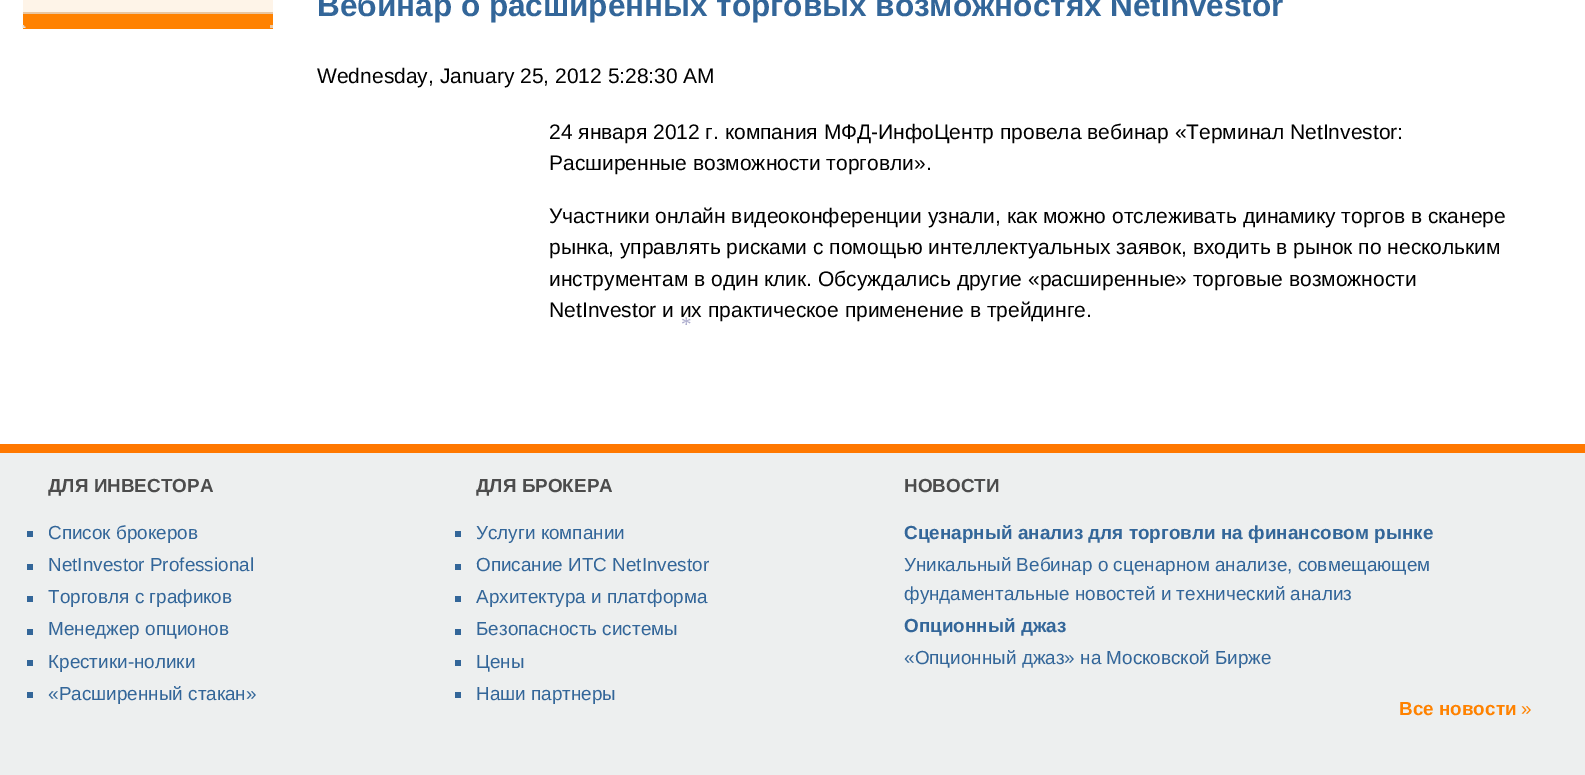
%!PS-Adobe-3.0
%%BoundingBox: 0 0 1585 775
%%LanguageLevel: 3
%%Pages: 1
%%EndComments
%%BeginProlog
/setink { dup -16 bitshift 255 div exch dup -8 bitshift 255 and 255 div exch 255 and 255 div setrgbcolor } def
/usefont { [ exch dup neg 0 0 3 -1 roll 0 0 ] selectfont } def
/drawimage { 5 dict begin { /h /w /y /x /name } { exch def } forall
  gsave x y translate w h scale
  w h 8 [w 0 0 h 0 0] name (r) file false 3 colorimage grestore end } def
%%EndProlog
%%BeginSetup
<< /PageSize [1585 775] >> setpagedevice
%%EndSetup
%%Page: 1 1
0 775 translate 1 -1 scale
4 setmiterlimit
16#EDEFEF setink
0 0 1585 775 rectfill
[
    [0 0 1585 444 16#FFFFFF]
    [23 12 250 2 16#E9C6A0]
    [23 0 250 12 16#FEF4E8]
    [23 14 250 15 16#FF8201]
] { aload pop setink rectfill } forall
(img1.raw) 22 25 4 3 drawimage
16#ECC9A4 setink
270 25 3 3 rectfill
/LiberationSans-Bold 31.5 usefont
16#336699 setink
317 16 moveto (Вебинар о расширенных торговых возможностях NetInvestor) show
/LiberationSans-Regular 21 usefont
16#000000 setink
[
    [(Wednesday, January 25, 2012 5:28:30 AM) 317 83]
    [(24 января 2012 г. компания МФД-ИнфоЦентр провела вебинар «Терминал NetInvestor:) 549 139]
    [(Расширенные возможности торговли».) 549 170]
    [(Участники онлайн видеоконференции узнали, как можно отслеживать динамику торгов в сканере) 549 223]
    [(рынка, управлять рисками с помощью интеллектуальных заявок, входить в рынок по нескольким) 549 254]
    [(инструментам в один клик. Обсуждались другие «расширенные» торговые возможности) 549 286]
    [(NetInvestor и их практическое применение в трейдинге.) 549 317]
] { aload pop moveto show } forall
16#FF7800 setink
0 444 1585 9 rectfill
/LiberationSans-Bold 18.9 usefont
16#4C4C4C setink
48 492 moveto (ДЛЯ ИНВЕСТОРА) show
16#336699 setink
27 531 6 6 rectfill
/LiberationSans-Regular 18.9 usefont
48 539 moveto (Список брокеров) show
27 564 6 6 rectfill
48 571 moveto (NetInvestor Professional) show
27 596 6 6 rectfill
48 603 moveto (Торговля с графиков) show
27 629 6 6 rectfill
48 635 moveto (Менеджер опционов) show
27 660 6 6 rectfill
48 668 moveto (Крестики-нолики) show
27 692 6 6 rectfill
48 700 moveto («Расширенный стакан») show
/LiberationSans-Bold 18.9 usefont
16#4C4C4C setink
476 492 moveto (ДЛЯ БРОКЕРА) show
16#336699 setink
455 531 6 6 rectfill
/LiberationSans-Regular 18.9 usefont
476 539 moveto (Услуги компании) show
455 564 6 6 rectfill
476 571 moveto (Описание ИТС NetInvestor) show
455 596 6 6 rectfill
476 603 moveto (Архитектура и платформа) show
455 629 6 6 rectfill
476 635 moveto (Безопасность системы) show
455 660 6 6 rectfill
476 668 moveto (Цены) show
455 692 6 6 rectfill
476 700 moveto (Наши партнеры) show
/LiberationSans-Bold 18.9 usefont
16#4C4C4C setink
904 492 moveto (НОВОСТИ) show
16#336699 setink
904 539 moveto (Сценарный анализ для торговли на финансовом рынке) show
/LiberationSans-Regular 18.9 usefont
904 571 moveto (Уникальный Вебинар о сценарном анализе, совмещающем) show
904 600 moveto (фундаментальные новостей и технический анализ) show
/LiberationSans-Bold 18.9 usefont
904 632 moveto (Опционный джаз) show
/LiberationSans-Regular 18.9 usefont
904 664 moveto («Опционный джаз» на Московской Бирже) show
/LiberationSans-Bold 18.9 usefont
16#FF8200 setink
1399 715 moveto (Все новости) show
/LiberationSans-Regular 18.9 usefont
1521 715 moveto (») show
/LiberationSerif-Regular 21 usefont
16#AAAACC setink
681 331 moveto (*) show
showpage
%%EOF
